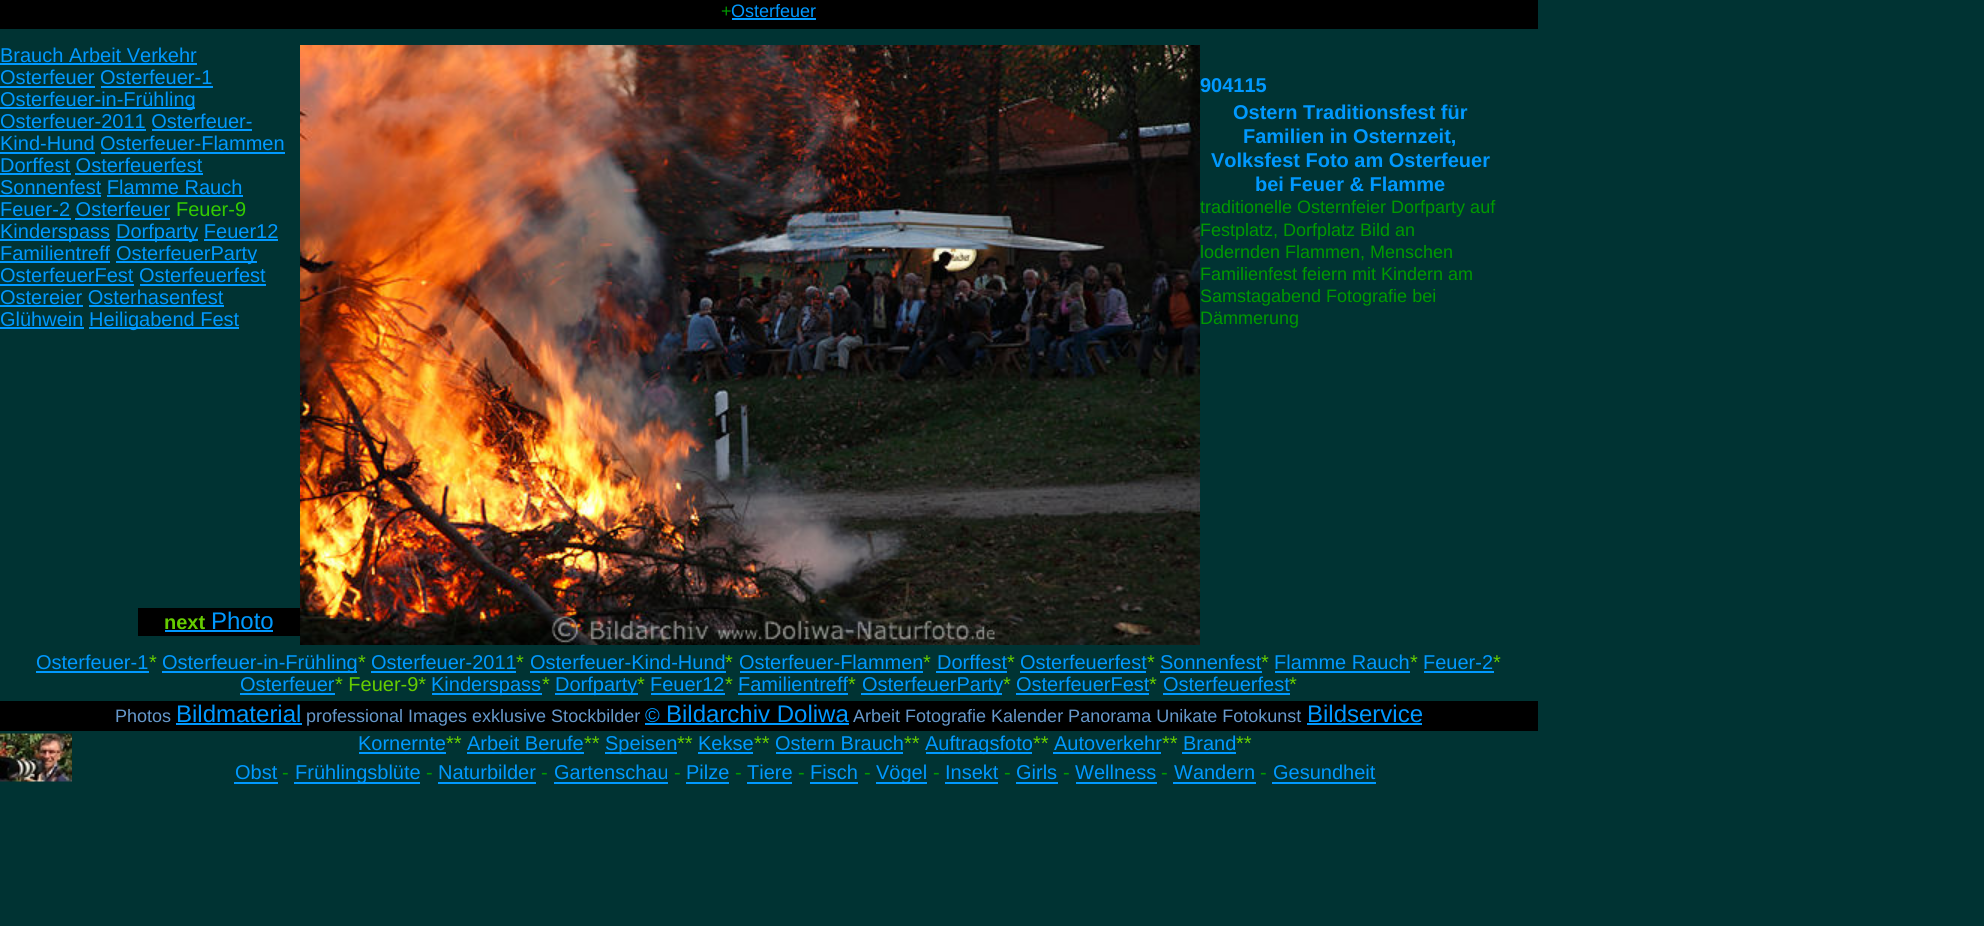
import math
import cairocffi as cairo

surface = cairo.ImageSurface(cairo.FORMAT_RGB24, 1984, 926)
ctx = cairo.Context(surface)
options = cairo.FontOptions()
options.set_hint_metrics(cairo.HINT_METRICS_OFF)
options.set_hint_style(cairo.HINT_STYLE_NONE)
ctx.set_font_options(options)
ctx.set_miter_limit(4)


def rgb(r, g, b):
    ctx.set_source_rgb(r / 255, g / 255, b / 255)


def face(family, size, italic, bold):
    ctx.select_font_face(family, cairo.FONT_SLANT_ITALIC if italic else cairo.FONT_SLANT_NORMAL, cairo.FONT_WEIGHT_BOLD if bold else cairo.FONT_WEIGHT_NORMAL)
    ctx.set_font_size(size)


def label(x, y, s):
    ctx.move_to(x, y)
    ctx.show_text(s)


def rect(x, y, w, h):
    ctx.rectangle(x, y, w, h)
    ctx.fill()


def image(path, x, y, w, h):
    ctx.save()
    ctx.set_source_surface(cairo.ImageSurface.create_from_png(path), x, y)
    ctx.rectangle(x, y, w, h)
    ctx.fill()
    ctx.restore()


rgb(0, 51, 51)
ctx.paint()
rgb(0, 0, 0)
rect(0, 0, 1538, 29)
face('Liberation Sans', 18, 0, 0)
rgb(0, 153, 0)
label(721, 17, '+')
rgb(0, 153, 255)
label(731, 17, 'Osterfeuer')
rect(732, 18, 84, 2)
face('Liberation Sans', 20, 0, 0)
label(0, 62, 'Brauch Arbeit Verkehr')
rect(0, 63, 197, 2)
label(0, 84, 'Osterfeuer Osterfeuer-1')
rect(0, 86, 95, 2)
rect(101, 86, 112, 2)
rect(0, 107, 195, 2)
label(0, 106, 'Osterfeuer-in-Frühling')
label(0, 128, 'Osterfeuer-2011 Osterfeuer-')
rect(0, 129, 146, 2)
label(0, 150, 'Kind-Hund Osterfeuer-Flammen')
rect(152, 129, 100, 2)
rect(0, 152, 95, 2)
rect(101, 152, 184, 2)
label(0, 172, 'Dorffest Osterfeuerfest')
rect(0, 173, 71, 2)
rect(75, 173, 128, 2)
label(0, 194, 'Sonnenfest Flamme Rauch')
rect(0, 195, 101, 2)
rect(107, 195, 136, 2)
label(0, 216, 'Feuer-2 Osterfeuer')
rect(0, 218, 71, 2)
rgb(51, 204, 0)
label(176, 216, 'Feuer-9')
rgb(0, 153, 255)
rect(75, 218, 95, 2)
rect(0, 239, 110, 2)
label(0, 238, 'Kinderspass')
rect(116, 239, 82, 2)
label(116, 238, 'Dorfparty Feuer12')
rect(204, 239, 74, 2)
label(0, 260, 'Familientreff')
rect(0, 261, 110, 2)
rect(116, 261, 141, 2)
label(116, 260, 'OsterfeuerParty')
label(0, 282, 'OsterfeuerFest Osterfeuerfest')
rect(0, 284, 134, 2)
rect(140, 284, 126, 2)
label(0, 304, 'Ostereier Osterhasenfest')
rect(0, 305, 83, 2)
rect(89, 305, 135, 2)
label(0, 326, 'Glühwein')
rect(0, 327, 84, 2)
rect(89, 327, 150, 2)
label(89, 326, 'Heiligabend Fest')
image('image0.png', 300, 45, 900, 600)
face('Liberation Sans', 20, 0, 1)
label(1200, 92, '904115')
label(1233, 119, 'Ostern Traditionsfest für')
label(1243, 143, 'Familien in Osternzeit,')
label(1211, 167, 'Volksfest Foto am Osterfeuer')
label(1255, 191, 'bei Feuer & Flamme')
face('Liberation Sans', 18, 0, 0)
rgb(0, 153, 0)
label(1200, 213, 'traditionelle Osternfeier Dorfparty auf')
label(1200, 236, 'Festplatz, Dorfplatz Bild an')
label(1200, 258, 'lodernden Flammen, Menschen')
label(1200, 280, 'Familienfest feiern mit Kindern am')
label(1200, 302, 'Samstagabend Fotografie bei')
label(1200, 324, 'Dämmerung')
rgb(0, 0, 0)
rect(138, 608, 162, 28)
face('Liberation Sans', 20, 0, 1)
rgb(102, 204, 0)
label(164, 629, 'next')
rgb(0, 153, 255)
rect(165, 630, 108, 2)
face('Liberation Sans', 24, 0, 0)
label(211, 629, 'Photo')
face('Liberation Sans', 20, 0, 0)
label(36, 669, 'Osterfeuer-1')
rect(36, 671, 113, 2)
rgb(102, 204, 0)
label(149, 669, '*')
rgb(0, 153, 255)
rect(162, 671, 195, 2)
label(162, 669, 'Osterfeuer-in-Frühling')
rgb(102, 204, 0)
label(358, 669, '*')
rgb(0, 153, 255)
label(371, 669, 'Osterfeuer-2011')
rect(371, 671, 145, 2)
rgb(102, 204, 0)
label(516, 669, '*')
rgb(0, 153, 255)
label(530, 669, 'Osterfeuer-Kind-Hund')
rect(530, 671, 196, 2)
rgb(102, 204, 0)
label(725, 669, '*')
rgb(0, 153, 255)
label(739, 669, 'Osterfeuer-Flammen')
rect(740, 671, 183, 2)
rgb(102, 204, 0)
label(923, 669, '*')
rgb(0, 153, 255)
label(937, 669, 'Dorffest')
rect(936, 671, 71, 2)
rgb(102, 204, 0)
label(1007, 669, '*')
rgb(0, 153, 255)
label(1020, 669, 'Osterfeuerfest')
rect(1020, 671, 126, 2)
rgb(102, 204, 0)
label(1147, 669, '*')
rgb(0, 153, 255)
label(1160, 669, 'Sonnenfest')
rect(1160, 671, 102, 2)
rgb(102, 204, 0)
label(1261, 669, '*')
rgb(0, 153, 255)
label(1274, 669, 'Flamme Rauch')
rect(1275, 671, 135, 2)
rgb(102, 204, 0)
label(1410, 669, '*')
rgb(0, 153, 255)
label(1423, 669, 'Feuer-2')
rect(1424, 671, 70, 2)
rgb(102, 204, 0)
label(1493, 669, '*')
rgb(0, 153, 255)
label(240, 691, 'Osterfeuer')
rect(240, 693, 95, 2)
rgb(102, 204, 0)
label(335, 691, '* Feuer-9*')
rgb(0, 153, 255)
rect(432, 693, 110, 2)
label(431, 691, 'Kinderspass')
rgb(102, 204, 0)
label(542, 691, '*')
rgb(0, 153, 255)
rect(555, 693, 83, 2)
label(555, 691, 'Dorfparty')
rgb(102, 204, 0)
label(637, 691, '*')
rgb(0, 153, 255)
label(650, 691, 'Feuer12')
rect(651, 693, 74, 2)
rgb(102, 204, 0)
label(725, 691, '*')
rgb(0, 153, 255)
label(738, 691, 'Familientreff')
rect(738, 693, 110, 2)
rgb(102, 204, 0)
label(848, 691, '*')
rgb(0, 153, 255)
rect(861, 693, 141, 2)
label(862, 691, 'OsterfeuerParty')
rgb(102, 204, 0)
label(1003, 691, '*')
rgb(0, 153, 255)
label(1016, 691, 'OsterfeuerFest')
rect(1016, 693, 133, 2)
rgb(102, 204, 0)
label(1149, 691, '*')
rgb(0, 153, 255)
label(1163, 691, 'Osterfeuerfest')
rect(1163, 693, 127, 2)
rgb(102, 204, 0)
label(1289, 691, '*')
rgb(0, 0, 0)
rect(0, 701, 1538, 30)
face('Liberation Sans', 18, 0, 0)
rgb(102, 153, 204)
label(115, 722, 'Photos')
face('Liberation Sans', 24, 0, 0)
rgb(0, 153, 255)
label(176, 722, 'Bildmaterial')
rect(176, 723, 126, 2)
face('Liberation Sans', 18, 0, 0)
rgb(102, 153, 204)
label(306, 722, 'professional Images exklusive Stockbilder')
face('Liberation Sans', 20, 0, 0)
rgb(0, 153, 255)
label(645, 722, '©')
rect(645, 723, 204, 2)
face('Liberation Sans', 24, 0, 0)
label(666, 722, 'Bildarchiv Doliwa')
face('Liberation Sans', 18, 0, 0)
rgb(102, 153, 204)
label(853, 722, 'Arbeit Fotografie Kalender Panorama Unikate Fotokunst')
face('Liberation Sans', 24, 0, 0)
rgb(0, 153, 255)
label(1307, 722, 'Bildservice')
rect(1307, 723, 115, 2)
image('image1.png', 0, 733, 72, 49)
face('Liberation Sans', 20, 0, 0)
label(358, 750, 'Kornernte')
rect(359, 752, 87, 2)
rgb(102, 204, 0)
label(446, 750, '**')
rgb(0, 153, 255)
label(467, 750, 'Arbeit Berufe')
rect(467, 752, 117, 2)
rgb(102, 204, 0)
label(584, 750, '**')
rgb(0, 153, 255)
rect(605, 752, 72, 2)
label(605, 750, 'Speisen')
rgb(102, 204, 0)
label(677, 750, '**')
rgb(0, 153, 255)
label(698, 750, 'Kekse')
rect(698, 752, 55, 2)
rgb(102, 204, 0)
label(754, 750, '**')
rgb(0, 153, 255)
label(775, 750, 'Ostern Brauch')
rect(776, 752, 127, 2)
rgb(102, 204, 0)
label(904, 750, '**')
rgb(0, 153, 255)
rect(926, 752, 106, 2)
label(925, 750, 'Auftragsfoto')
rgb(102, 204, 0)
label(1033, 750, '**')
rgb(0, 153, 255)
label(1054, 750, 'Autoverkehr')
rect(1053, 752, 108, 2)
rgb(102, 204, 0)
label(1162, 750, '**')
rgb(0, 153, 255)
label(1183, 750, 'Brand')
rect(1182, 752, 54, 2)
rgb(102, 204, 0)
label(1236, 750, '**')
rgb(0, 153, 255)
label(235, 779, 'Obst')
rect(234, 782, 44, 2)
rgb(0, 153, 0)
label(282, 779, '-')
rgb(0, 153, 255)
rect(294, 782, 126, 2)
label(295, 779, 'Frühlingsblüte')
rgb(0, 153, 0)
label(426, 779, '-')
rgb(0, 153, 255)
label(438, 779, 'Naturbilder')
rect(438, 782, 98, 2)
rgb(0, 153, 0)
label(541, 779, '-')
rgb(0, 153, 255)
label(554, 779, 'Gartenschau')
rect(554, 782, 114, 2)
rgb(0, 153, 0)
label(674, 779, '-')
rgb(0, 153, 255)
label(686, 779, 'Pilze')
rect(686, 782, 43, 2)
rgb(0, 153, 0)
label(735, 779, '-')
rgb(0, 153, 255)
label(747, 779, 'Tiere')
rect(747, 782, 45, 2)
rgb(0, 153, 0)
label(798, 779, '-')
rgb(0, 153, 255)
label(810, 779, 'Fisch')
rect(810, 782, 48, 2)
rgb(0, 153, 0)
label(864, 779, '-')
rgb(0, 153, 255)
rect(876, 782, 51, 2)
label(876, 779, 'Vögel')
rgb(0, 153, 0)
label(933, 779, '-')
rgb(0, 153, 255)
label(945, 779, 'Insekt')
rect(945, 782, 53, 2)
rgb(0, 153, 0)
label(1004, 779, '-')
rgb(0, 153, 255)
label(1016, 779, 'Girls')
rect(1016, 782, 42, 2)
rgb(0, 153, 0)
label(1063, 779, '-')
rgb(0, 153, 255)
label(1075, 779, 'Wellness')
rect(1076, 782, 81, 2)
rgb(0, 153, 0)
label(1161, 779, '-')
rgb(0, 153, 255)
label(1174, 779, 'Wandern')
rect(1173, 782, 83, 2)
rgb(0, 153, 0)
label(1260, 779, '-')
rgb(0, 153, 255)
label(1273, 779, 'Gesundheit')
rect(1272, 782, 104, 2)
surface.write_to_png('render.png')
